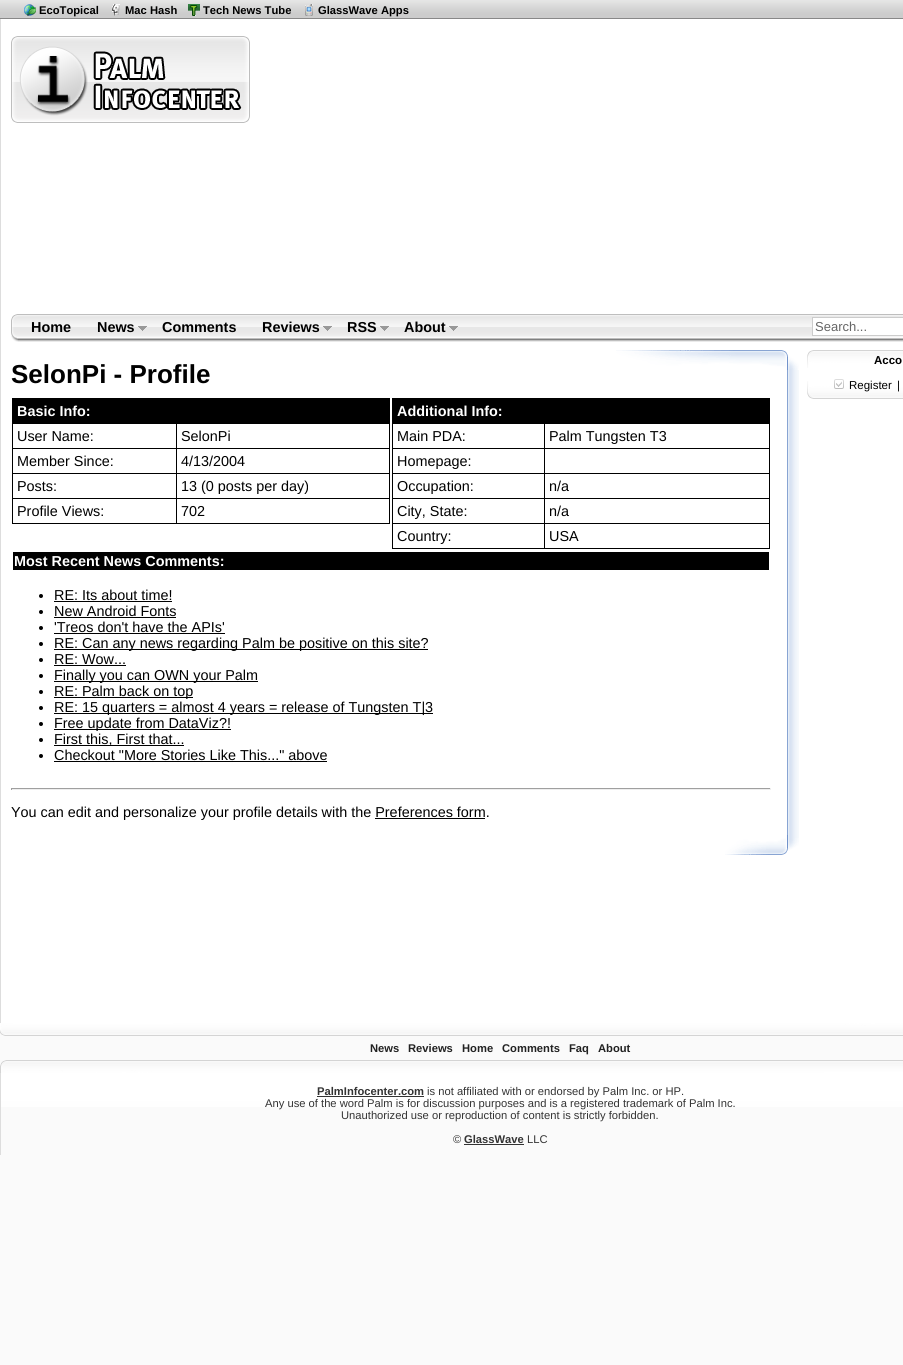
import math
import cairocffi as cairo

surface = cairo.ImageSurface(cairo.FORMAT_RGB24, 903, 1365)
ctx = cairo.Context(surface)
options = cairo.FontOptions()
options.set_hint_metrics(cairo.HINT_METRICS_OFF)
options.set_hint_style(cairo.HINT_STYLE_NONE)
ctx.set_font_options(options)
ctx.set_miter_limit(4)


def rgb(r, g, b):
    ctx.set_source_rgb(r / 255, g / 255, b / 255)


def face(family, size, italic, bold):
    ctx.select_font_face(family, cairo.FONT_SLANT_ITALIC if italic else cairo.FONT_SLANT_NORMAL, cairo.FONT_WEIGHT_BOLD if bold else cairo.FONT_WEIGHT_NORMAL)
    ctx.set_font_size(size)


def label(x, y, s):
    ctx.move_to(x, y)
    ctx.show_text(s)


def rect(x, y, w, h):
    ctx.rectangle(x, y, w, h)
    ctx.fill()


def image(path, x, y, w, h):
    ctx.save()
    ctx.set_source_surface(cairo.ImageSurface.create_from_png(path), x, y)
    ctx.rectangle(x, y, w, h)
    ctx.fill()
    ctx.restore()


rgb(250, 250, 250)
ctx.paint()
image('image0.png', 0, 0, 903, 18)
rgb(136, 136, 136)
rect(0, 18, 903, 1)
image('image1.png', 24, 4, 12, 12)
face('Liberation Sans', 11.2, 0, 1)
rgb(0, 0, 0)
label(39, 14, 'EcoTopical')
image('image2.png', 112, 4, 8, 12)
label(125, 14, 'Mac Hash')
image('image3.png', 188, 4, 12, 12)
label(203, 14, 'Tech News Tube')
image('image4.png', 305, 4, 8, 12)
label(318, 14, 'GlassWave Apps')
rgb(255, 255, 255)
rect(1, 19, 902, 1004)
rgb(221, 221, 221)
rect(0, 19, 1, 1004)
image('image5.png', 11, 36, 239, 87)
image('image6.png', 18, 314, 885, 28)
image('image7.png', 11, 314, 7, 28)
face('Liberation Sans', 14.4, 0, 1)
rgb(0, 0, 0)
label(31, 332, 'Home')
label(97, 332, 'News')
image('image8.png', 138, 326, 9, 5)
label(162, 332, 'Comments')
label(262, 332, 'Reviews')
image('image8.png', 323, 326, 9, 5)
label(347, 332, 'RSS')
image('image8.png', 380, 326, 9, 5)
label(404, 332, 'About')
image('image8.png', 449, 326, 9, 5)
rgb(255, 255, 255)
ctx.rectangle(812.5, 317.5, 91, 18)
ctx.fill_preserve()
rgb(204, 204, 204)
ctx.set_line_width(1)
ctx.stroke()
face('Liberation Sans', 13, 0, 0)
rgb(102, 102, 102)
label(815, 331, 'Search...')
image('image9.png', 787, 370, 12, 465)
image('image10.png', 616, 350, 183, 20)
face('Liberation Sans', 26, 0, 1)
rgb(0, 0, 0)
label(11, 383, 'SelonPi - Profile')
rect(12, 398, 378, 126)
face('Liberation Sans', 14.4, 0, 1)
rgb(255, 255, 255)
label(17, 416, 'Basic Info:')
rect(13, 424, 163, 24)
face('Liberation Sans', 14.4, 0, 0)
rgb(0, 0, 0)
label(17, 441, 'User Name:')
rgb(255, 255, 255)
rect(177, 424, 212, 24)
rgb(0, 0, 0)
label(181, 441, 'SelonPi')
rgb(255, 255, 255)
rect(13, 449, 163, 24)
rgb(0, 0, 0)
label(17, 466, 'Member Since:')
rgb(255, 255, 255)
rect(177, 449, 212, 24)
rgb(0, 0, 0)
label(181, 466, '4/13/2004')
rgb(255, 255, 255)
rect(13, 474, 163, 24)
rgb(0, 0, 0)
label(17, 491, 'Posts:')
rgb(255, 255, 255)
rect(177, 474, 212, 24)
rgb(0, 0, 0)
label(181, 491, '13 (0 posts per day)')
rgb(255, 255, 255)
rect(13, 499, 163, 24)
rgb(0, 0, 0)
label(17, 516, 'Profile Views:')
rgb(255, 255, 255)
rect(177, 499, 212, 24)
rgb(0, 0, 0)
label(181, 516, '702')
rect(392, 398, 378, 151)
face('Liberation Sans', 14.4, 0, 1)
rgb(255, 255, 255)
label(397, 416, 'Additional Info:')
rect(393, 424, 151, 24)
face('Liberation Sans', 14.4, 0, 0)
rgb(0, 0, 0)
label(397, 441, 'Main PDA:')
rgb(255, 255, 255)
rect(545, 424, 224, 24)
rgb(0, 0, 0)
label(549, 441, 'Palm Tungsten T3')
rgb(255, 255, 255)
rect(393, 449, 151, 24)
rgb(0, 0, 0)
label(397, 466, 'Homepage:')
rgb(255, 255, 255)
rect(545, 449, 224, 24)
rect(393, 474, 151, 24)
rgb(0, 0, 0)
label(397, 491, 'Occupation:')
rgb(255, 255, 255)
rect(545, 474, 224, 24)
rgb(0, 0, 0)
label(549, 491, 'n/a')
rgb(255, 255, 255)
rect(393, 499, 151, 24)
rgb(0, 0, 0)
label(397, 516, 'City, State:')
rgb(255, 255, 255)
rect(545, 499, 224, 24)
rgb(0, 0, 0)
label(549, 516, 'n/a')
rgb(255, 255, 255)
rect(393, 524, 151, 24)
rgb(0, 0, 0)
label(397, 541, 'Country:')
rgb(255, 255, 255)
rect(545, 524, 224, 24)
rgb(0, 0, 0)
label(549, 541, 'USA')
rect(13, 552, 756, 18)
face('Liberation Sans', 14.4, 0, 1)
rgb(255, 255, 255)
label(14, 566, 'Most Recent News Comments:')
rgb(0, 0, 0)
ctx.new_path()
ctx.arc(41, 596, 2, 0, 2 * math.pi)
ctx.fill()
face('Liberation Sans', 14.4, 0, 0)
label(54, 600, 'RE: Its about time!')
rect(54, 601, 118, 1)
ctx.new_path()
ctx.arc(41, 612, 2, 0, 2 * math.pi)
ctx.fill()
label(54, 616, 'New Android Fonts')
rect(54, 617, 122, 1)
ctx.new_path()
ctx.arc(41, 628, 2, 0, 2 * math.pi)
ctx.fill()
label(54, 632, '\'Treos don\'t have the APIs\'')
rect(54, 633, 171, 1)
ctx.new_path()
ctx.arc(41, 644, 2, 0, 2 * math.pi)
ctx.fill()
rect(54, 649, 374, 1)
label(54, 648, 'RE: Can any news regarding Palm be positive on this site?')
ctx.new_path()
ctx.arc(41, 660, 2, 0, 2 * math.pi)
ctx.fill()
label(54, 664, 'RE: Wow...')
rect(54, 665, 72, 1)
ctx.new_path()
ctx.arc(41, 676, 2, 0, 2 * math.pi)
ctx.fill()
rect(54, 681, 204, 1)
label(54, 680, 'Finally you can OWN your Palm')
ctx.new_path()
ctx.arc(41, 692, 2, 0, 2 * math.pi)
ctx.fill()
rect(54, 697, 139, 1)
label(54, 696, 'RE: Palm back on top')
ctx.new_path()
ctx.arc(41, 708, 2, 0, 2 * math.pi)
ctx.fill()
rect(54, 713, 379, 1)
label(54, 712, 'RE: 15 quarters = almost 4 years = release of Tungsten T|3')
ctx.new_path()
ctx.arc(41, 724, 2, 0, 2 * math.pi)
ctx.fill()
rect(54, 729, 177, 1)
label(54, 728, 'Free update from DataViz?!')
ctx.new_path()
ctx.arc(41, 740, 2, 0, 2 * math.pi)
ctx.fill()
rect(54, 745, 130, 1)
label(54, 744, 'First this, First that...')
ctx.new_path()
ctx.arc(41, 756, 2, 0, 2 * math.pi)
ctx.fill()
label(54, 760, 'Checkout "More Stories Like This..." above')
rect(54, 761, 273, 1)
rgb(159, 159, 159)
rect(11, 788, 760, 1)
rgb(238, 238, 238)
rect(770, 788, 1, 2)
rect(11, 789, 760, 1)
rgb(159, 159, 159)
rect(11, 788, 1, 2)
rgb(0, 0, 0)
label(11, 817, 'You can edit and personalize your profile details with the Preferences form.')
rect(375, 818, 110, 1)
image('image11.png', 725, 835, 74, 20)
image('image12.png', 807, 381, 96, 18)
image('image13.png', 807, 350, 96, 18)
face('Liberation Sans', 11.5, 0, 1)
label(874, 364, 'Acco')
image('image14.png', 834, 379, 10, 10)
face('Liberation Sans', 11.5, 0, 0)
label(849, 389, 'Register')
label(897, 389, '|')
image('image15.png', 0, 1023, 903, 13)
face('Liberation Sans', 11.2, 0, 1)
rgb(34, 34, 34)
label(370, 1052, 'News')
label(408, 1052, 'Reviews')
label(462, 1052, 'Home')
label(502, 1052, 'Comments')
label(569, 1052, 'Faq')
label(598, 1052, 'About')
image('image16.png', 0, 1060, 903, 13)
image('image17.png', 1, 1073, 902, 34)
rgb(221, 221, 221)
rect(0, 1073, 1, 82)
rgb(51, 51, 51)
label(317, 1095, 'PalmInfocenter.com')
rect(317, 1096, 107, 1)
face('Liberation Sans', 11.2, 0, 0)
label(427, 1095, 'is not affiliated with or endorsed by Palm Inc. or HP.')
label(265, 1107, 'Any use of the word Palm is for discussion purposes and is a registered trademark of Palm Inc.')
label(341, 1119, 'Unauthorized use or reproduction of content is strictly forbidden.')
label(453, 1143, '©')
face('Liberation Sans', 11.2, 0, 1)
label(464, 1143, 'GlassWave')
rect(464, 1144, 60, 1)
face('Liberation Sans', 11.2, 0, 0)
label(527, 1143, 'LLC')
surface.write_to_png('render.png')
